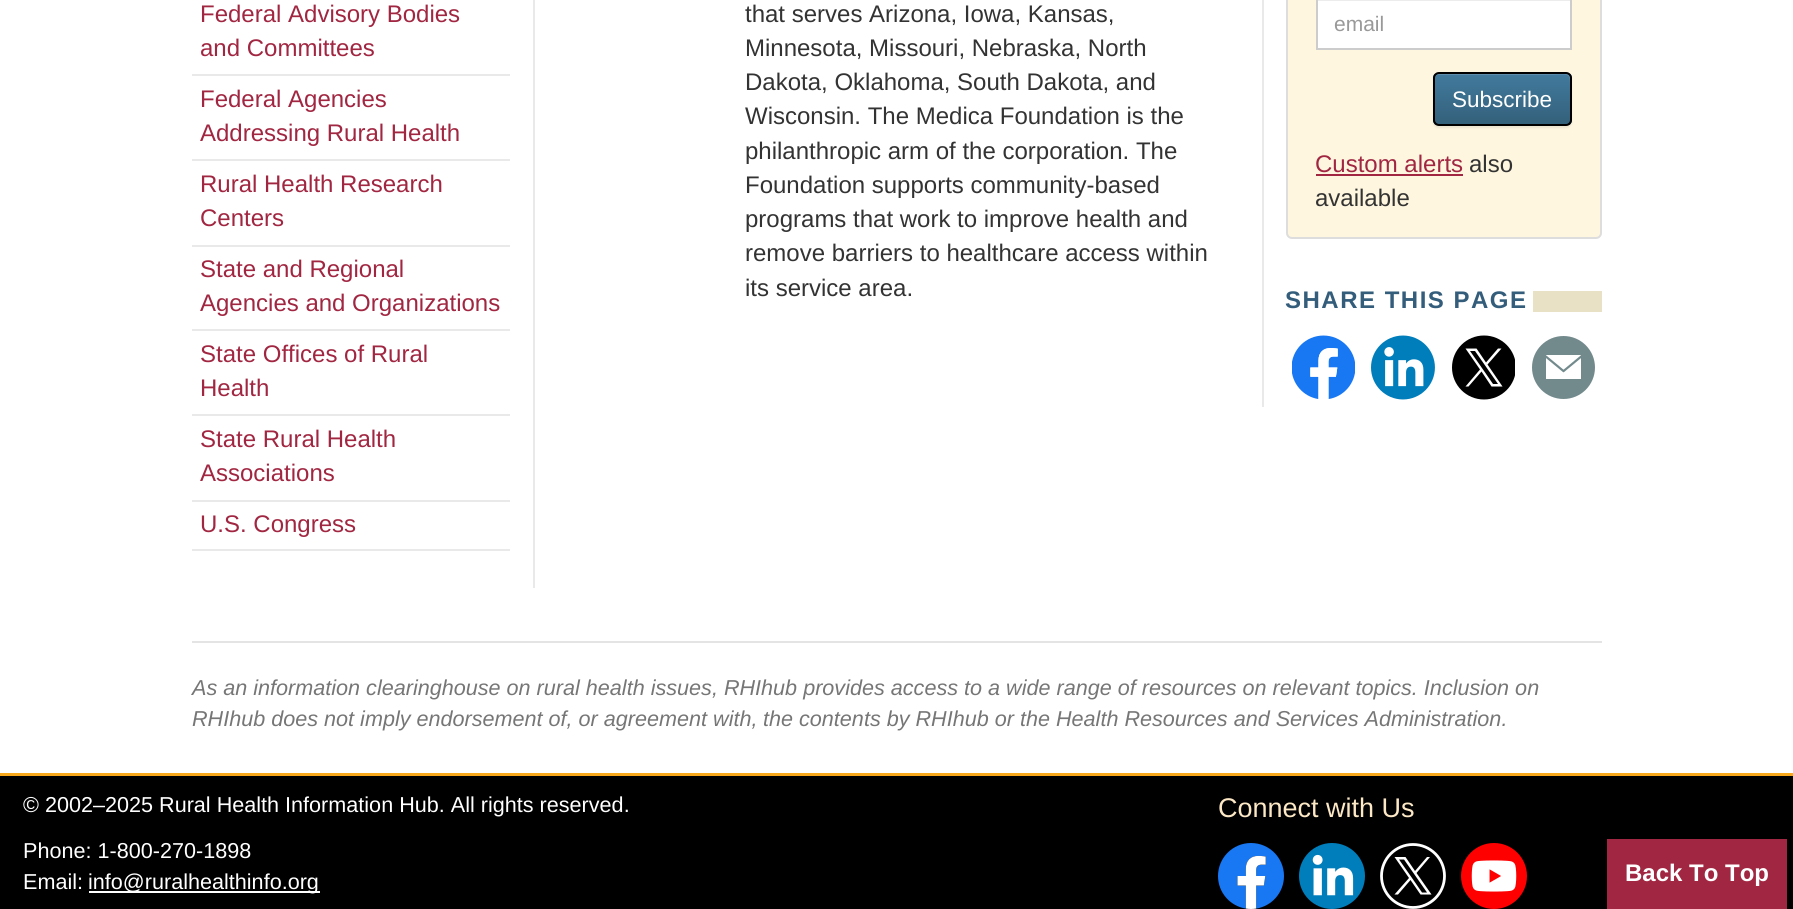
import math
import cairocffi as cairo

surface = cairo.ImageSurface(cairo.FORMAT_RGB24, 1793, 909)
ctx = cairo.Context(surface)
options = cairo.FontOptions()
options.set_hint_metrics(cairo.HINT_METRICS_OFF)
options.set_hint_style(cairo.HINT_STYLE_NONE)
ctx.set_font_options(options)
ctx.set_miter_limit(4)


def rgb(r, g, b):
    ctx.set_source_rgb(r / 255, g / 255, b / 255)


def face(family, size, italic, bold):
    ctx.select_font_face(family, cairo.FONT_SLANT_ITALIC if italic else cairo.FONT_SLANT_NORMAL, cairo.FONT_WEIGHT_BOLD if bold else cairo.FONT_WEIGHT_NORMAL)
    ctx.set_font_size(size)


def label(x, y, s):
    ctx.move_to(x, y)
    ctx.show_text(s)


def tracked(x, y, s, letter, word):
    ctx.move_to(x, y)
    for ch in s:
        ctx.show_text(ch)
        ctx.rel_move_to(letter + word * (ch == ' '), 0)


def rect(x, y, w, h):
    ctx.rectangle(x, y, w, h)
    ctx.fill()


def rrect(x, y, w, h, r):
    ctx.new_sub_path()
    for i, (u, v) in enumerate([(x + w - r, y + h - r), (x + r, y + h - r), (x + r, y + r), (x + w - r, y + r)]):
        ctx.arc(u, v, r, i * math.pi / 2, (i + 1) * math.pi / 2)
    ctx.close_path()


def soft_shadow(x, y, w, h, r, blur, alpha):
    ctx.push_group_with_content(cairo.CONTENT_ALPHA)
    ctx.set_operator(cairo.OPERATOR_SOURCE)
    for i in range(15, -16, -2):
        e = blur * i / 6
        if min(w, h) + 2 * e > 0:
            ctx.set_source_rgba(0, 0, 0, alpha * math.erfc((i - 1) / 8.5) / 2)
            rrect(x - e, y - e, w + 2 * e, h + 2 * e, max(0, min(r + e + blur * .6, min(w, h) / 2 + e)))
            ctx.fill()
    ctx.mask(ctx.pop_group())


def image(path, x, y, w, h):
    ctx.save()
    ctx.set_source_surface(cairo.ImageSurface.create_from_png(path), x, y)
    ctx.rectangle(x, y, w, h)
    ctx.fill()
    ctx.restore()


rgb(255, 255, 255)
ctx.paint()
rgb(233, 233, 233)
rect(533, 0, 2, 588)
rect(192, 74, 318, 2)
face('Liberation Sans', 24, 0, 0)
rgb(161, 38, 65)
label(200, 22, 'Federal Advisory Bodies')
label(200, 56, 'and Committees')
rgb(233, 233, 233)
rect(192, 159, 318, 2)
rgb(161, 38, 65)
label(200, 107, 'Federal Agencies')
label(200, 141, 'Addressing Rural Health')
rgb(233, 233, 233)
rect(192, 245, 318, 2)
rgb(161, 38, 65)
label(200, 192, 'Rural Health Research')
label(200, 226, 'Centers')
rgb(233, 233, 233)
rect(192, 329, 318, 2)
rgb(161, 38, 65)
label(200, 277, 'State and Regional')
label(200, 311, 'Agencies and Organizations')
rgb(233, 233, 233)
rect(192, 414, 318, 2)
rgb(161, 38, 65)
label(200, 362, 'State Offices of Rural')
label(200, 396, 'Health')
rgb(233, 233, 233)
rect(192, 500, 318, 2)
rgb(161, 38, 65)
label(200, 447, 'State Rural Health')
label(200, 481, 'Associations')
rgb(233, 233, 233)
rect(192, 549, 318, 2)
rgb(161, 38, 65)
label(200, 532, 'U.S. Congress')
rgb(51, 51, 51)
label(745, 22, 'that serves Arizona, Iowa, Kansas,')
label(745, 56, 'Minnesota, Missouri, Nebraska, North')
label(745, 90, 'Dakota, Oklahoma, South Dakota, and')
label(745, 124, 'Wisconsin. The Medica Foundation is the')
label(745, 159, 'philanthropic arm of the corporation. The')
label(745, 193, 'Foundation supports community-based')
label(745, 227, 'programs that work to improve health and')
label(745, 261, 'remove barriers to healthcare access within')
label(745, 296, 'its service area.')
rgb(233, 233, 233)
rect(1262, 0, 2, 407)
rgb(254, 246, 223)
rrect(1287, -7, 314, 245, 5)
ctx.fill_preserve()
rgb(221, 221, 221)
ctx.stroke()
rgb(255, 255, 255)
rect(1318, 1, 252, 47)
rgb(236, 236, 236)
rect(1317, 0, 254, 1)
ctx.rectangle(1317, -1, 254, 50)
rgb(204, 204, 204)
ctx.stroke()
face('Liberation Sans', 21, 0, 0)
rgb(153, 153, 153)
label(1334, 31, 'email')
rgb(0, 0, 0)
soft_shadow(1433, 74, 139, 54, 6, 1, 0.07)
ctx.save()
rrect(1433, 72, 139, 54, 6)
ctx.clip()
gradient = cairo.LinearGradient(1502, 73, 1502, 125)
gradient.add_color_stop_rgba(0, 0.259, 0.482, 0.62, 1)
gradient.add_color_stop_rgba(1, 0.2, 0.376, 0.478, 1)
ctx.set_source(gradient)
rect(1433, 74, 139, 51)
ctx.restore()
ctx.set_source_rgba(1, 1, 1, 0.15)
ctx.new_path()
ctx.move_to(1438, 75)
ctx.line_to(1545, 75)
ctx.curve_to(1572, 75, 1570, 70, 1570, 94)
ctx.line_to(1570, 123)
ctx.curve_to(1571, 122, 1571, 121, 1571, 120)
ctx.line_to(1571, 79)
ctx.curve_to(1571, 76, 1569, 74, 1566, 74)
ctx.line_to(1439, 74)
ctx.curve_to(1436, 74, 1434, 76, 1434, 79)
ctx.line_to(1434, 80)
ctx.curve_to(1434, 77, 1436, 75, 1438, 75)
ctx.close_path()
ctx.fill()
rrect(1434, 73, 137, 52, 5)
rgb(0, 0, 0)
ctx.stroke()
face('Liberation Sans', 22.5, 0, 0)
rgb(255, 255, 255)
label(1452, 107, 'Subscribe')
face('Liberation Sans', 24, 0, 0)
rgb(161, 38, 65)
label(1315, 172, 'Custom alerts')
rect(1316, 174, 147, 2)
rgb(51, 51, 51)
label(1469, 172, 'also')
label(1315, 206, 'available')
face('Liberation Sans', 24, 0, 1)
rgb(51, 93, 122)
tracked(1285, 308, 'SHARE THIS PAGE', 1.5, 0)
rgb(233, 225, 197)
rect(1533, 291, 69, 21)
image('image0.png', 1292, 335, 63, 64)
image('image1.png', 1371, 335, 64, 65)
ctx.save()
ctx.rectangle(1452, 335, 63, 66)
ctx.clip()
rgb(0, 0, 0)
ctx.arc(1484, 367.5, 32, 0, 2 * math.pi)
ctx.fill()
ctx.restore()
rgb(255, 255, 255)
ctx.new_path()
ctx.move_to(1487.5, 364.5)
ctx.line_to(1501.5, 348.5)
ctx.line_to(1498, 348.5)
ctx.line_to(1486, 362.5)
ctx.line_to(1476.5, 348.5)
ctx.line_to(1465.5, 348.5)
ctx.line_to(1480, 369.5)
ctx.line_to(1465.5, 386.5)
ctx.line_to(1468.5, 386.5)
ctx.line_to(1481.5, 371.5)
ctx.line_to(1491.5, 386.5)
ctx.line_to(1502.5, 386.5)
ctx.close_path()
ctx.move_to(1483, 369.5)
ctx.line_to(1470, 351)
ctx.line_to(1475, 351)
ctx.line_to(1498, 384)
ctx.line_to(1493, 384)
ctx.close_path()
ctx.fill()
rgb(115, 138, 141)
ctx.arc(1563.5, 367.5, 31.5, 0, 2 * math.pi)
ctx.fill()
rgb(255, 255, 255)
rect(1546, 355, 35, 24)
ctx.new_path()
ctx.move_to(1544, 355)
ctx.line_to(1564, 371.5)
ctx.move_to(1583, 355)
ctx.line_to(1563, 371.5)
rgb(115, 138, 141)
ctx.set_line_width(2.2)
ctx.stroke()
rgb(228, 228, 228)
rect(192, 641, 1410, 2)
face('Liberation Sans', 21.6, 1, 0)
rgb(118, 118, 118)
label(192, 695, 'As an information clearinghouse on rural health issues, RHIhub provides access to a wide range of resources on relevant topics. Inclusion on')
label(192, 726, 'RHIhub does not imply endorsement of, or agreement with,')
label(763, 726, 'the contents by RHIhub or the Health Resources and Services Administration.')
rgb(0, 0, 0)
rect(0, 776, 1793, 133)
rgb(247, 168, 27)
rect(0, 773, 1793, 3)
face('Liberation Sans', 21.6, 0, 0)
rgb(255, 255, 255)
label(23, 812, '© 2002–2025 Rural Health Information Hub. All rights reserved.')
label(23, 858, 'Phone: 1-800-270-1898')
label(23, 889, 'Email:')
rect(89, 891, 231, 2)
label(88, 889, 'info@ruralhealthinfo.org')
face('Liberation Sans', 27, 0, 0)
rgb(253, 232, 198)
label(1218, 817, 'Connect with Us')
image('image2.png', 1218, 843, 66, 66)
image('image3.png', 1299, 843, 66, 66)
ctx.arc(1413, 876, 31.5, 0, 2 * math.pi)
rgb(255, 255, 255)
ctx.set_line_width(2.8)
ctx.stroke()
ctx.new_path()
ctx.move_to(1416.5, 873)
ctx.line_to(1430, 857)
ctx.line_to(1427, 857)
ctx.line_to(1415, 871)
ctx.line_to(1405.5, 857)
ctx.line_to(1394.5, 857)
ctx.line_to(1409, 878)
ctx.line_to(1394.5, 894.5)
ctx.line_to(1398, 894.5)
ctx.line_to(1410.5, 880)
ctx.line_to(1420.5, 894.5)
ctx.line_to(1431.5, 894.5)
ctx.close_path()
ctx.move_to(1412, 878)
ctx.line_to(1399, 859.5)
ctx.line_to(1404, 859.5)
ctx.line_to(1427, 892.5)
ctx.line_to(1422, 892.5)
ctx.close_path()
ctx.fill()
image('image4.png', 1461, 843, 66, 66)
rgb(161, 38, 65)
rect(1607, 839, 180, 70)
face('Liberation Sans', 24, 0, 1)
rgb(255, 255, 255)
label(1625, 881, 'Back To Top')
surface.write_to_png('render.png')
